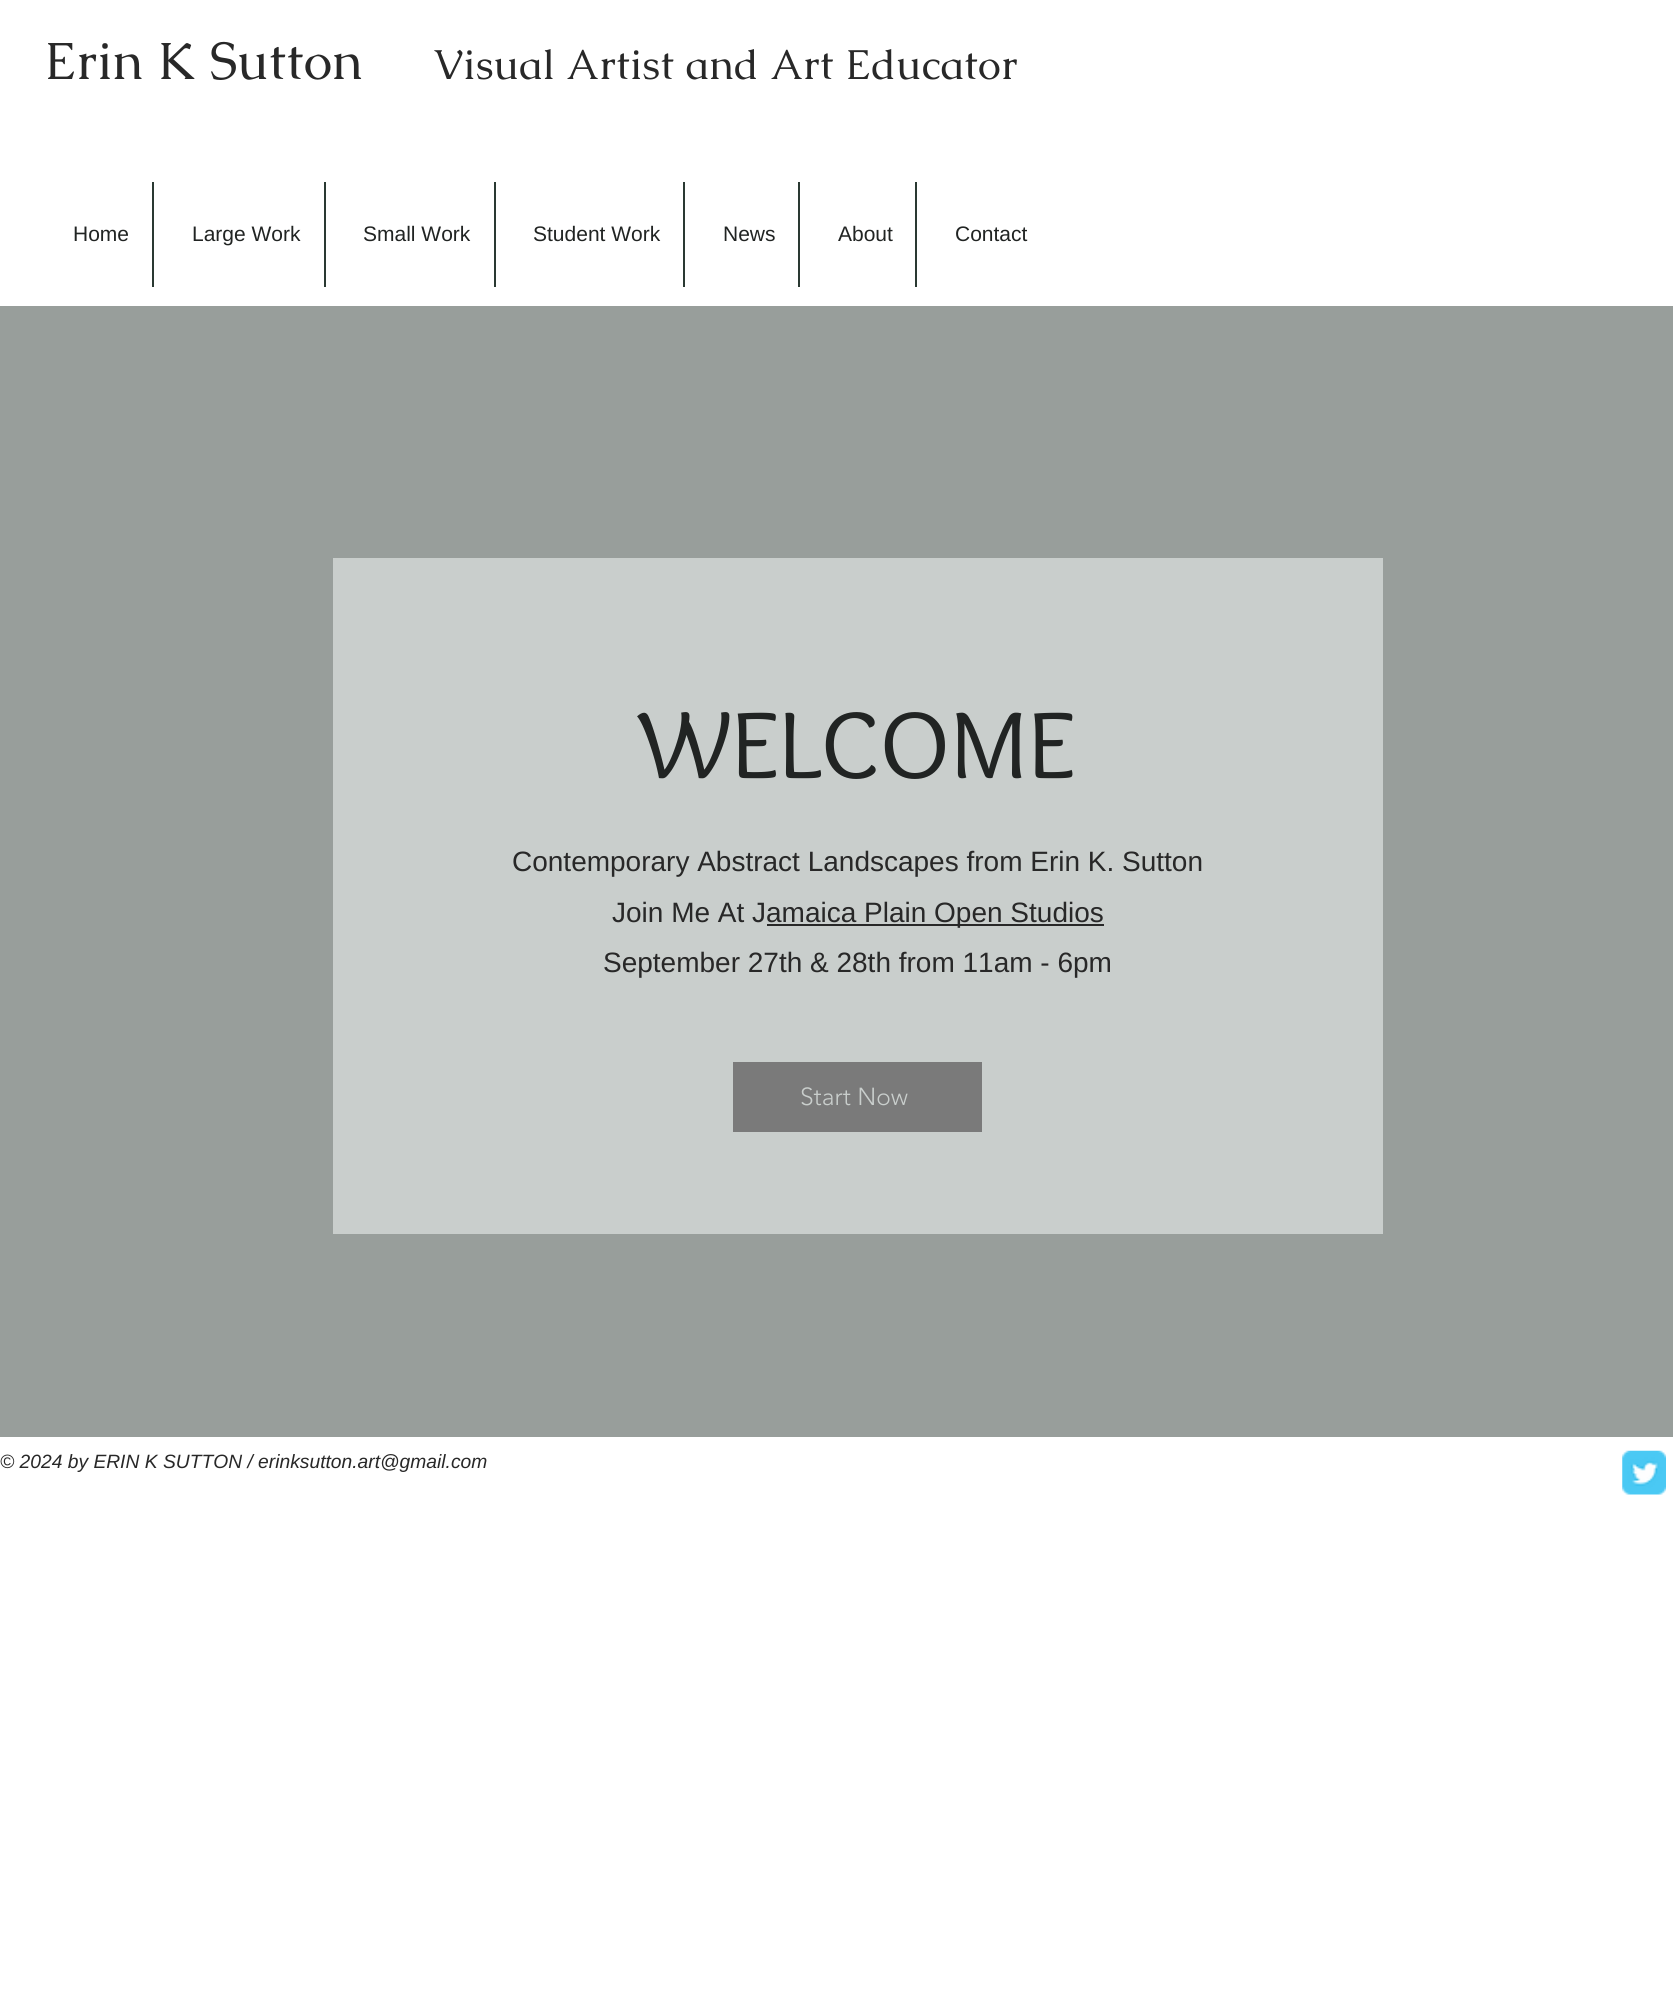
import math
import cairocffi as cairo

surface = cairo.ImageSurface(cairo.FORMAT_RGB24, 1673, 2012)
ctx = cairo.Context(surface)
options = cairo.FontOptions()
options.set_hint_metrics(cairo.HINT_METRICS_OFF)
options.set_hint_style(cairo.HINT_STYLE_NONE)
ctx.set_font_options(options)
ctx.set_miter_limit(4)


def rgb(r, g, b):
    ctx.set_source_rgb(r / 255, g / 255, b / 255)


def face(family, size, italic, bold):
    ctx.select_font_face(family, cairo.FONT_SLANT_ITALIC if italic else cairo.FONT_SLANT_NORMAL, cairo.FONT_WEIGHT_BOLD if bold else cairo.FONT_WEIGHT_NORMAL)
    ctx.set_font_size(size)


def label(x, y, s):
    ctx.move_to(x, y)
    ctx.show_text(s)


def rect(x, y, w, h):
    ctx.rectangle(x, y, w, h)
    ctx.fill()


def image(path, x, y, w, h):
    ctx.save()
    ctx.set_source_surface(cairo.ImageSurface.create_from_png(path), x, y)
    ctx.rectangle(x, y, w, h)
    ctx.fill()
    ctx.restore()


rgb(255, 255, 255)
ctx.paint()
face('Caudex', 52.5, 0, 0)
rgb(40, 40, 40)
label(44, 79, 'Erin K Sutton')
face('Caudex', 42, 0, 0)
label(433, 79, 'Visual Artist and Art Educator')
face('Liberation Sans', 21, 0, 0)
rgb(33, 36, 35)
label(73, 241, 'Home')
rgb(42, 57, 50)
rect(152, 182, 2, 105)
rgb(33, 36, 35)
label(192, 241, 'Large Work')
rgb(42, 57, 50)
rect(324, 182, 2, 105)
rgb(33, 36, 35)
label(363, 241, 'Small Work')
rgb(42, 57, 50)
rect(494, 182, 2, 105)
rgb(33, 36, 35)
label(533, 241, 'Student Work')
rgb(42, 57, 50)
rect(683, 182, 2, 105)
rgb(33, 36, 35)
label(723, 241, 'News')
rgb(42, 57, 50)
rect(798, 182, 2, 105)
rgb(33, 36, 35)
label(838, 241, 'About')
rgb(42, 57, 50)
rect(915, 182, 2, 105)
rgb(33, 36, 35)
label(955, 241, 'Contact')
rgb(152, 158, 155)
rect(0, 306, 1673, 1131)
rgb(201, 206, 204)
rect(333, 558, 1050, 676)
face('Overlock', 98, 0, 0)
rgb(33, 36, 35)
label(639, 778, 'WELCOME')
face('Liberation Sans', 28, 0, 0)
rgb(40, 40, 40)
label(512, 871, 'Contemporary Abstract Landscapes from Erin K. Sutton')
label(612, 922, 'Join Me At J')
rect(767, 924, 337, 2)
label(766, 922, 'amaica Plain Open Studios')
label(603, 972, 'September 27th & 28th from 11am - 6pm')
rgb(122, 122, 122)
rect(733, 1062, 249, 70)
face('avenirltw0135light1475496 Light', 24.5, 0, 0)
rgb(201, 206, 204)
label(800, 1105, 'Start Now')
face('Liberation Sans', 19.25, 1, 0)
rgb(40, 40, 40)
label(0, 1468, '© 2024 by ERIN K SUTTON / erinksutton.art@gmail.com')
image('image0.png', 1622, 1450, 44, 45)
surface.write_to_png('render.png')
